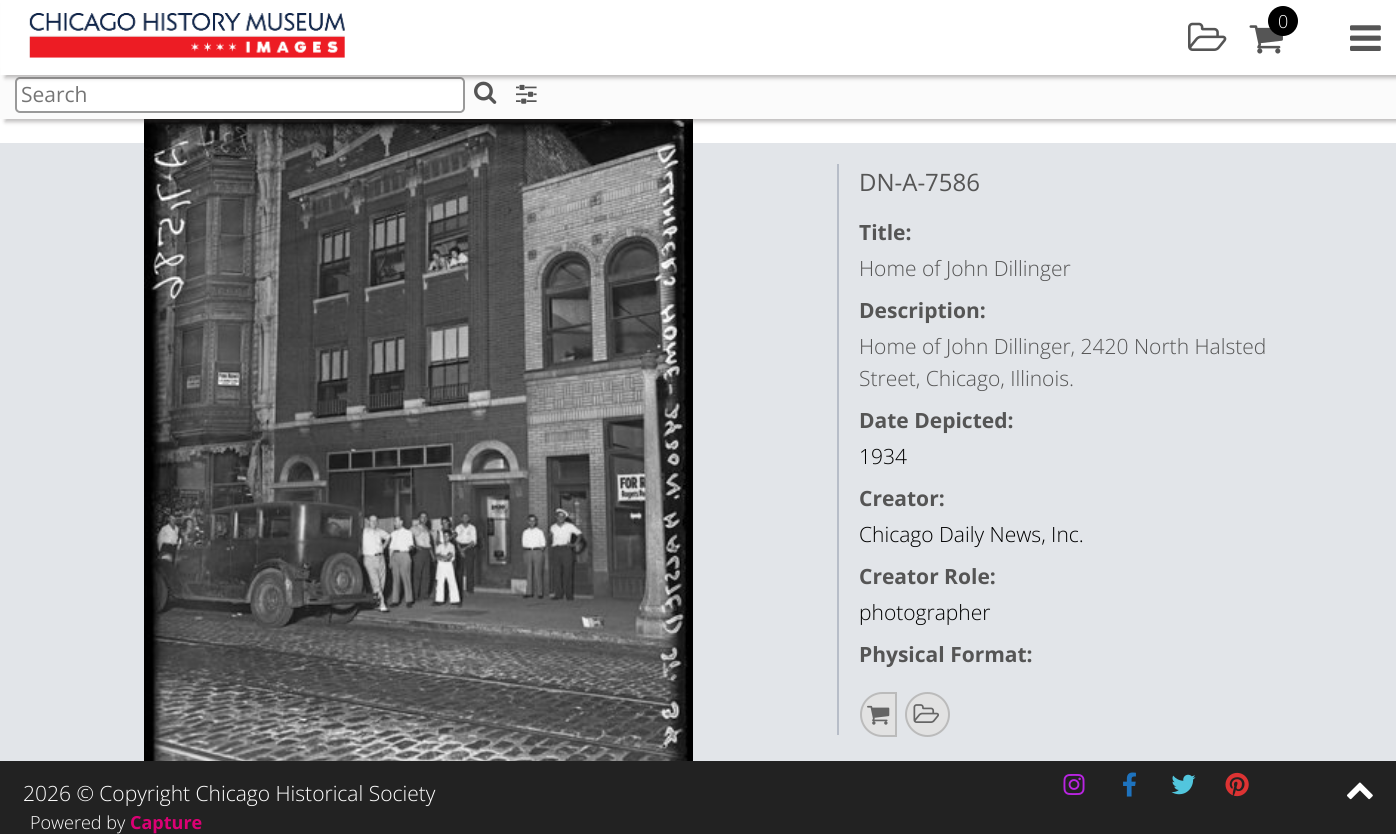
import math
import cairocffi as cairo

surface = cairo.ImageSurface(cairo.FORMAT_RGB24, 1396, 834)
ctx = cairo.Context(surface)
options = cairo.FontOptions()
options.set_hint_metrics(cairo.HINT_METRICS_OFF)
options.set_hint_style(cairo.HINT_STYLE_NONE)
ctx.set_font_options(options)
ctx.set_miter_limit(4)


def rgb(r, g, b):
    ctx.set_source_rgb(r / 255, g / 255, b / 255)


def face(family, size, italic, bold):
    ctx.select_font_face(family, cairo.FONT_SLANT_ITALIC if italic else cairo.FONT_SLANT_NORMAL, cairo.FONT_WEIGHT_BOLD if bold else cairo.FONT_WEIGHT_NORMAL)
    ctx.set_font_size(size)


def label(x, y, s):
    ctx.move_to(x, y)
    ctx.show_text(s)


def rect(x, y, w, h):
    ctx.rectangle(x, y, w, h)
    ctx.fill()


def rrect(x, y, w, h, r):
    ctx.new_sub_path()
    for i, (u, v) in enumerate([(x + w - r, y + h - r), (x + r, y + h - r), (x + r, y + r), (x + w - r, y + r)]):
        ctx.arc(u, v, r, i * math.pi / 2, (i + 1) * math.pi / 2)
    ctx.close_path()


def soft_shadow(x, y, w, h, r, blur, alpha):
    ctx.push_group_with_content(cairo.CONTENT_ALPHA)
    ctx.set_operator(cairo.OPERATOR_SOURCE)
    for i in range(15, -16, -2):
        e = blur * i / 6
        if min(w, h) + 2 * e > 0:
            ctx.set_source_rgba(0, 0, 0, alpha * math.erfc((i - 1) / 8.5) / 2)
            rrect(x - e, y - e, w + 2 * e, h + 2 * e, max(0, min(r + e + blur * .6, min(w, h) / 2 + e)))
            ctx.fill()
    ctx.mask(ctx.pop_group())


def image(path, x, y, w, h):
    ctx.save()
    ctx.set_source_surface(cairo.ImageSurface.create_from_png(path), x, y)
    ctx.rectangle(x, y, w, h)
    ctx.fill()
    ctx.restore()


rgb(255, 255, 255)
ctx.paint()
rgb(226, 229, 233)
rect(0, 143, 1396, 618)
image('image6.png', 144, 119, 549, 642)
rgb(74, 69, 69)
soft_shadow(5, 68, 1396, 54, 0, 2, 0.35)
rgb(251, 251, 251)
rect(0, 75, 1396, 44)
rgb(255, 255, 255)
rrect(16, 78, 448, 34, 4)
ctx.fill_preserve()
rgb(153, 153, 153)
ctx.stroke()
image('image4.png', 474, 81, 23, 23)
image('image5.png', 516, 84, 21, 20)
rgb(74, 69, 69)
soft_shadow(5, 3, 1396, 75, 0, 2, 0.35)
rgb(255, 255, 255)
rect(1, 0, 1395, 75)
image('image0.png', 29, 13, 316, 45)
image('image1.png', 1188, 22, 39, 29)
image('image2.png', 1249, 25, 34, 29)
rgb(0, 0, 0)
ctx.arc(1283, 21, 15, 0, 2 * math.pi)
ctx.fill()
face('Open Sans Light', 18, 0, 0)
rgb(255, 255, 255)
label(1278, 28, '0')
image('image3.png', 1350, 25, 31, 26)
face('Open Sans', 21, 0, 0)
rgb(117, 117, 117)
label(21, 102, 'Search')
rgb(183, 189, 200)
rect(837, 164, 2, 571)
face('Open Sans', 24, 0, 0)
rgb(85, 85, 85)
label(859, 191, 'DN-A-7586')
face('Open Sans', 21, 0, 1)
label(859, 240, 'Title:')
face('Open Sans Light', 21, 0, 0)
label(859, 276, 'Home of John Dillinger')
face('Open Sans', 21, 0, 1)
label(859, 318, 'Description:')
face('Open Sans Light', 21, 0, 0)
label(859, 354, 'Home of John Dillinger, 2420 North Halsted')
label(859, 386, 'Street, Chicago, Illinois.')
face('Open Sans', 21, 0, 1)
label(859, 428, 'Date Depicted:')
face('Open Sans Light', 21, 0, 0)
rgb(0, 0, 0)
label(859, 464, '1934')
face('Open Sans', 21, 0, 1)
rgb(85, 85, 85)
label(859, 506, 'Creator:')
face('Open Sans Light', 21, 0, 0)
rgb(0, 0, 0)
label(859, 542, 'Chicago Daily News, Inc.')
face('Open Sans', 21, 0, 1)
rgb(85, 85, 85)
label(859, 584, 'Creator Role:')
face('Open Sans Light', 21, 0, 0)
rgb(0, 0, 0)
label(859, 620, 'photographer')
face('Open Sans', 21, 0, 1)
rgb(85, 85, 85)
label(859, 662, 'Physical Format:')
rgb(226, 226, 226)
ctx.new_path()
ctx.move_to(882.5, 693)
ctx.line_to(896, 693)
ctx.line_to(896, 736)
ctx.line_to(882.5, 736)
ctx.curve_to(870.5, 736, 861, 726.5, 861, 714.5)
ctx.curve_to(861, 702.5, 870.5, 693, 882.5, 693)
ctx.close_path()
ctx.fill_preserve()
rgb(187, 187, 187)
ctx.stroke()
image('image7.png', 867, 705, 23, 20)
rgb(226, 226, 226)
ctx.arc(927.5, 714.5, 21.5, 0, 2 * math.pi)
ctx.fill_preserve()
rgb(187, 187, 187)
ctx.stroke()
image('image8.png', 913, 704, 26, 19)
rgb(34, 34, 34)
rect(0, 761, 1396, 73)
face('Open Sans Light', 21, 0, 0)
rgb(255, 255, 255)
label(23, 801, '2026 © Copyright Chicago Historical Society')
face('Open Sans Light', 18, 0, 0)
label(30, 829, 'Powered by')
face('Open Sans', 18, 0, 1)
rgb(219, 0, 116)
label(130, 829, 'Capture')
image('image9.png', 1063, 774, 22, 21)
image('image10.png', 1123, 772, 13, 25)
image('image11.png', 1171, 774, 25, 21)
image('image12.png', 1225, 772, 24, 25)
image('image13.png', 1347, 782, 26, 18)
surface.write_to_png('render.png')
